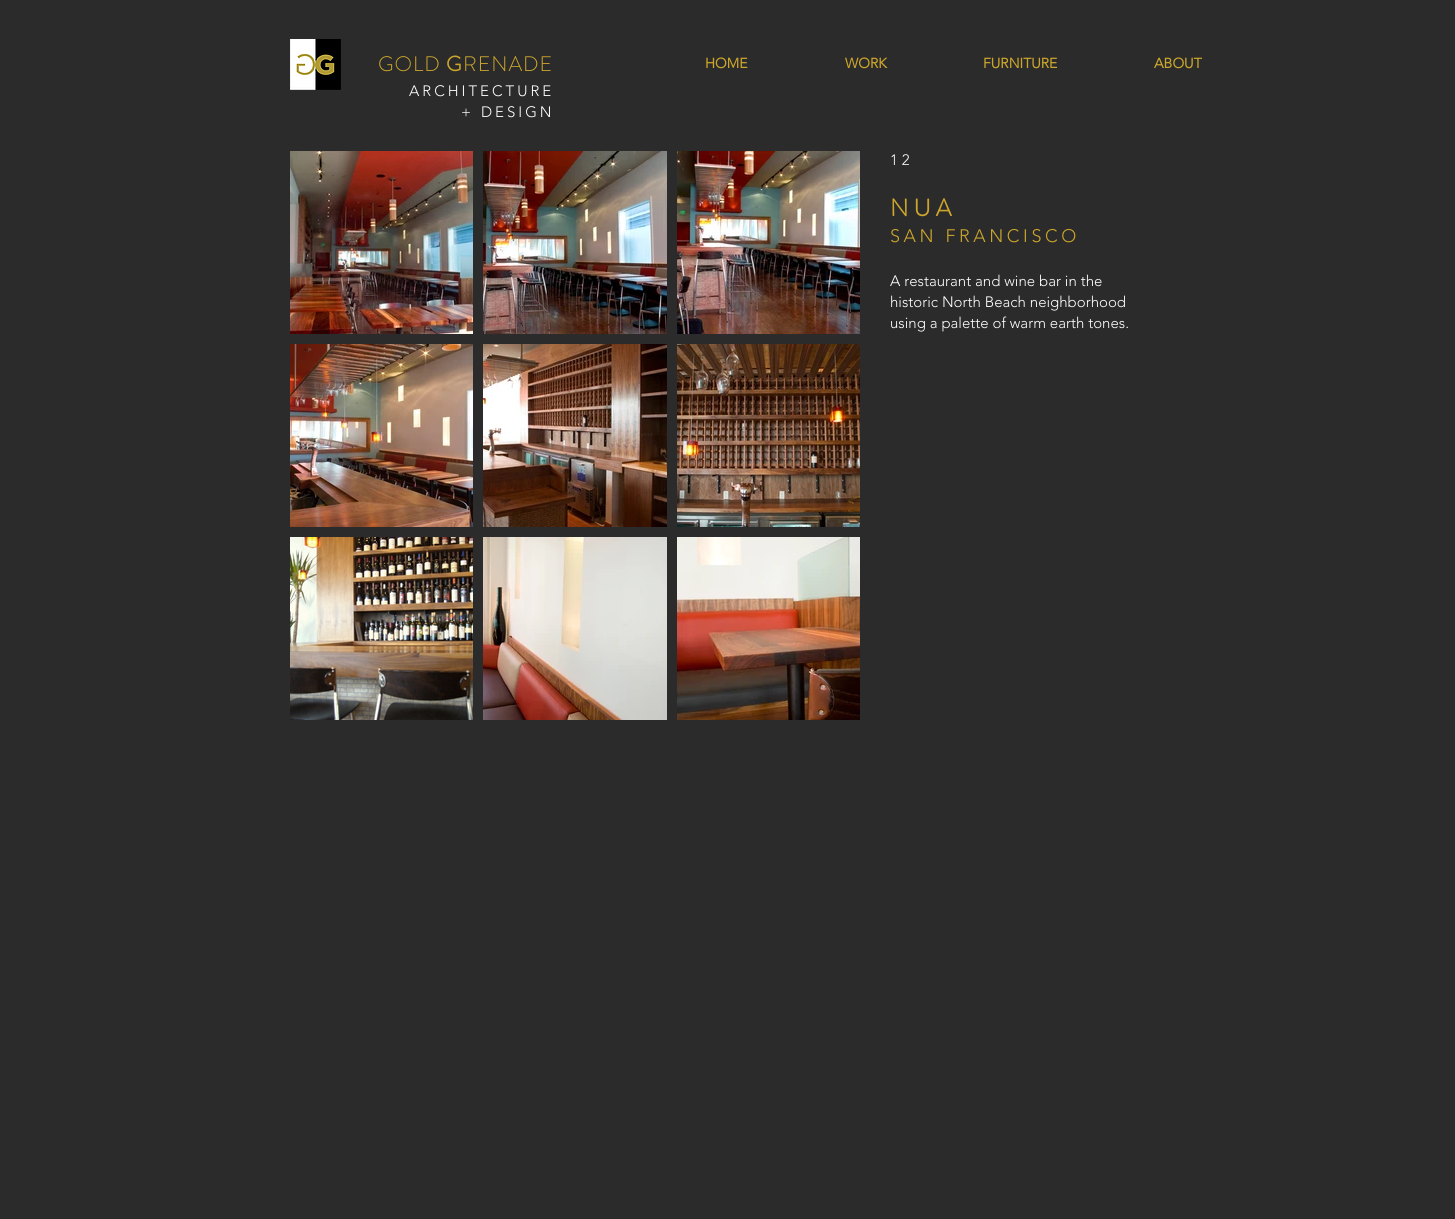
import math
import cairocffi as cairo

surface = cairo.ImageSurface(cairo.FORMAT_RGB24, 1455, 1219)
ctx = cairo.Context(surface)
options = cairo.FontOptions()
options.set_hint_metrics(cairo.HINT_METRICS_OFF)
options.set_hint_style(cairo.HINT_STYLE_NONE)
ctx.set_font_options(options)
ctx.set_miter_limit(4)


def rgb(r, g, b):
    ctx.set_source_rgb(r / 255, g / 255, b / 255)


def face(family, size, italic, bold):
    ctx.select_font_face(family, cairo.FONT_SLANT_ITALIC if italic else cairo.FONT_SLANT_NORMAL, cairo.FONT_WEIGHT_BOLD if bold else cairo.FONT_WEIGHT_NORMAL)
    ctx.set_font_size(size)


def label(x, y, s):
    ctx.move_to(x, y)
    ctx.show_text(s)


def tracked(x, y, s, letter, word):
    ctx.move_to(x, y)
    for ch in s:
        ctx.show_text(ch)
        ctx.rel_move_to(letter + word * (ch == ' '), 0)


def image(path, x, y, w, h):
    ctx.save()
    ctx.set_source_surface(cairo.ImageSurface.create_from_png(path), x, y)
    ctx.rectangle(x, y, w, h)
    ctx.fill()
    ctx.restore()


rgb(43, 43, 43)
ctx.paint()
image('image0.png', 290, 39, 51, 51)
face('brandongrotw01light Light', 21, 0, 0)
rgb(204, 166, 43)
tracked(378, 71, 'GOLD', 1, 0)
face('brandongrotw01light', 21, 0, 1)
tracked(446, 71, 'G', 1, 0)
face('brandongrotw01light Light', 21, 0, 0)
tracked(463, 71, 'RENADE', 1, 0)
face('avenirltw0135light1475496', 14, 0, 1)
label(705, 68, 'HOME')
label(845, 68, 'WORK')
label(983, 68, 'FURNITURE')
label(1154, 68, 'ABOUT')
face('avenirltw0135light1475496 Light', 15, 0, 0)
rgb(255, 255, 255)
tracked(409, 96, 'ARCHITECTURE', 3, 0)
tracked(461, 117, '+ DESIGN', 3, 0)
image('image1.png', 290, 151, 183, 183)
image('image2.png', 483, 151, 184, 183)
image('image3.png', 677, 151, 183, 183)
image('image4.png', 290, 344, 183, 183)
image('image5.png', 483, 344, 184, 183)
image('image6.png', 677, 344, 183, 183)
image('image7.png', 290, 537, 183, 183)
image('image8.png', 483, 537, 184, 183)
image('image9.png', 677, 537, 183, 183)
tracked(890, 165, '12', 4, 0)
face('brandongrotw01light', 24, 0, 1)
rgb(204, 166, 43)
tracked(890, 216, 'NUA', 5, 0)
face('avenirltw0135light1475496 Light', 18, 0, 0)
tracked(890, 242, 'SAN FRANCISCO', 3.6, 0)
face('avenirltw0135light1475496 Light', 15, 0, 0)
rgb(255, 255, 255)
label(890, 286, 'A restaurant and wine bar in the')
label(890, 307, 'historic North Beach neighborhood')
label(890, 328, 'using a palette of warm earth tones.')
surface.write_to_png('render.png')
